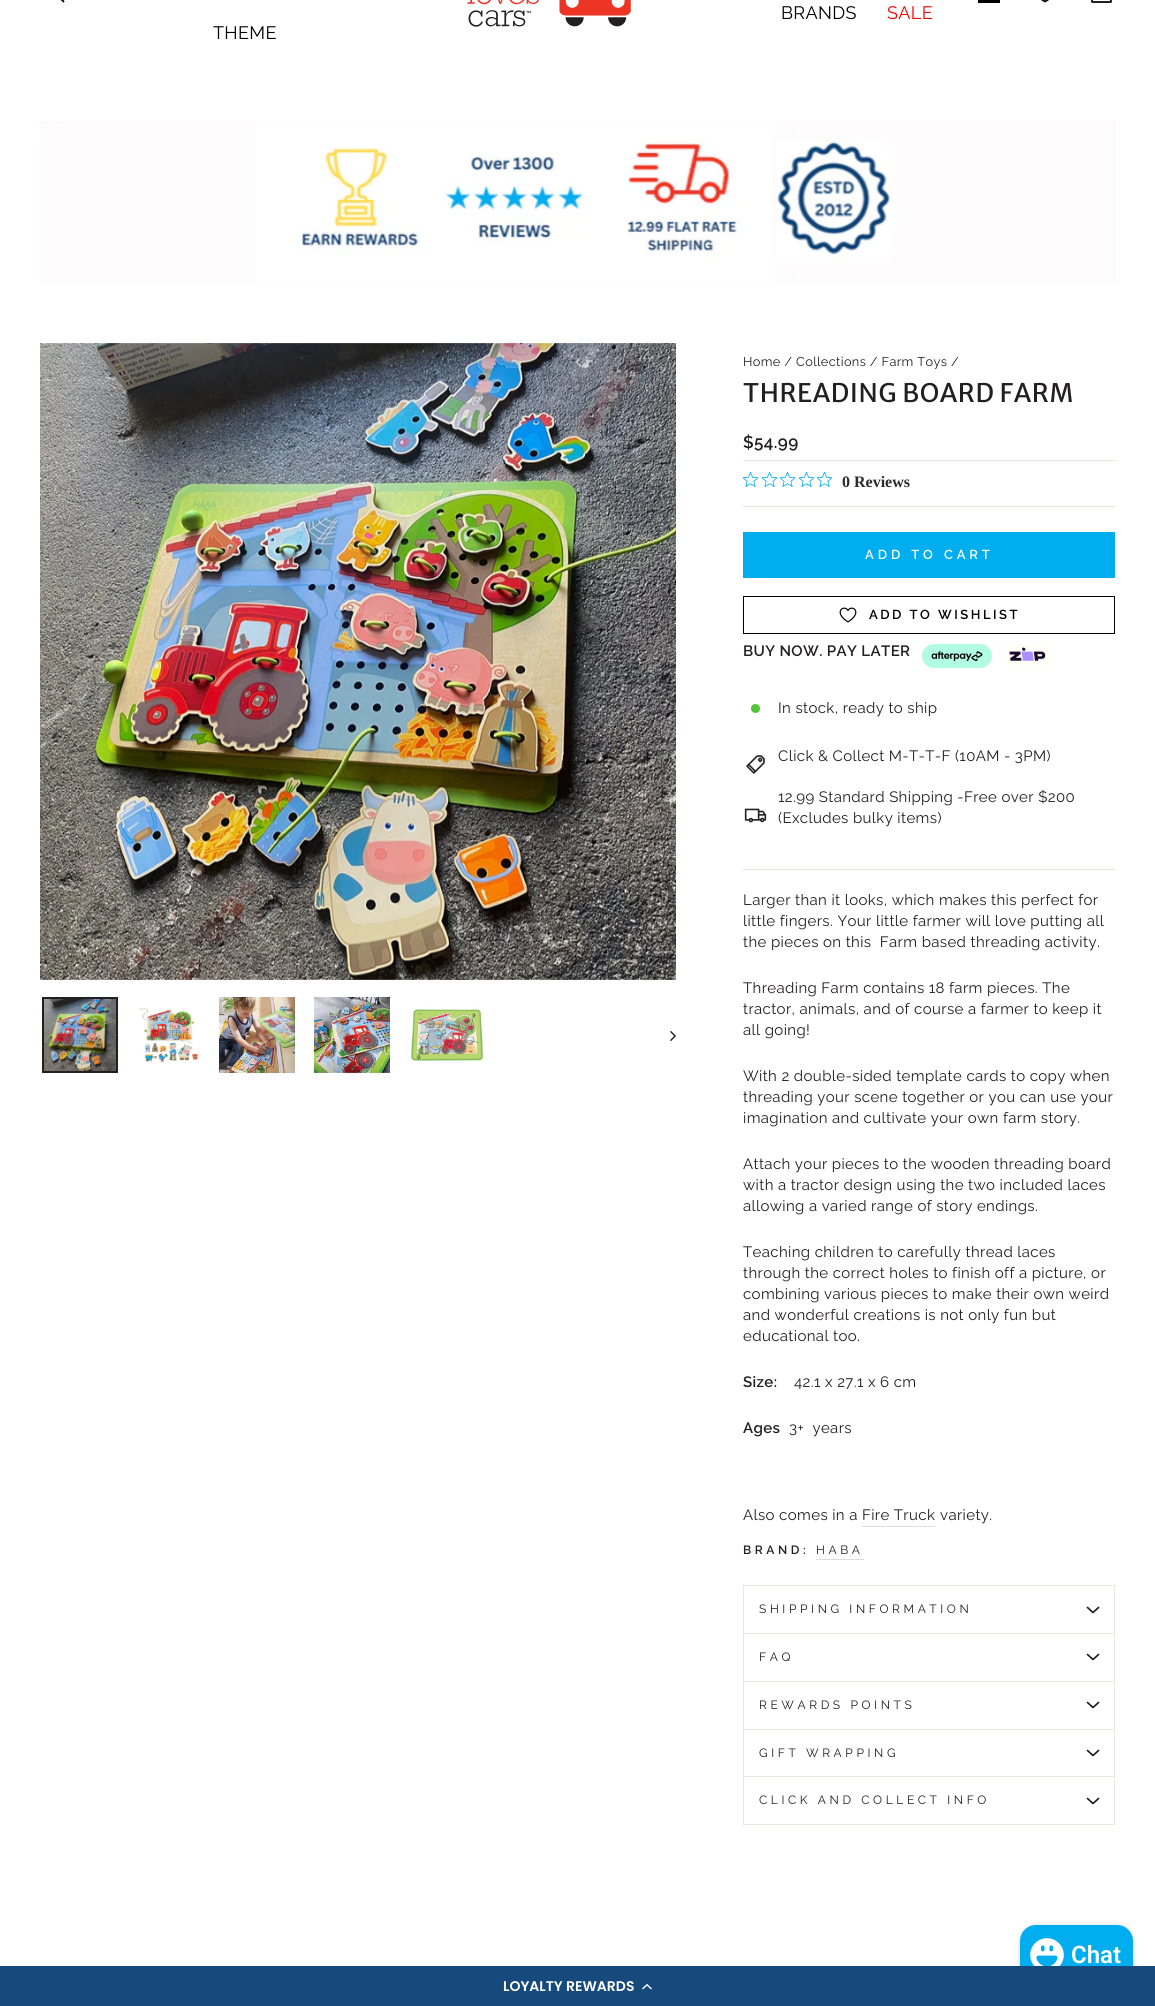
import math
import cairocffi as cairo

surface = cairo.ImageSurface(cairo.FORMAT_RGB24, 1155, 2006)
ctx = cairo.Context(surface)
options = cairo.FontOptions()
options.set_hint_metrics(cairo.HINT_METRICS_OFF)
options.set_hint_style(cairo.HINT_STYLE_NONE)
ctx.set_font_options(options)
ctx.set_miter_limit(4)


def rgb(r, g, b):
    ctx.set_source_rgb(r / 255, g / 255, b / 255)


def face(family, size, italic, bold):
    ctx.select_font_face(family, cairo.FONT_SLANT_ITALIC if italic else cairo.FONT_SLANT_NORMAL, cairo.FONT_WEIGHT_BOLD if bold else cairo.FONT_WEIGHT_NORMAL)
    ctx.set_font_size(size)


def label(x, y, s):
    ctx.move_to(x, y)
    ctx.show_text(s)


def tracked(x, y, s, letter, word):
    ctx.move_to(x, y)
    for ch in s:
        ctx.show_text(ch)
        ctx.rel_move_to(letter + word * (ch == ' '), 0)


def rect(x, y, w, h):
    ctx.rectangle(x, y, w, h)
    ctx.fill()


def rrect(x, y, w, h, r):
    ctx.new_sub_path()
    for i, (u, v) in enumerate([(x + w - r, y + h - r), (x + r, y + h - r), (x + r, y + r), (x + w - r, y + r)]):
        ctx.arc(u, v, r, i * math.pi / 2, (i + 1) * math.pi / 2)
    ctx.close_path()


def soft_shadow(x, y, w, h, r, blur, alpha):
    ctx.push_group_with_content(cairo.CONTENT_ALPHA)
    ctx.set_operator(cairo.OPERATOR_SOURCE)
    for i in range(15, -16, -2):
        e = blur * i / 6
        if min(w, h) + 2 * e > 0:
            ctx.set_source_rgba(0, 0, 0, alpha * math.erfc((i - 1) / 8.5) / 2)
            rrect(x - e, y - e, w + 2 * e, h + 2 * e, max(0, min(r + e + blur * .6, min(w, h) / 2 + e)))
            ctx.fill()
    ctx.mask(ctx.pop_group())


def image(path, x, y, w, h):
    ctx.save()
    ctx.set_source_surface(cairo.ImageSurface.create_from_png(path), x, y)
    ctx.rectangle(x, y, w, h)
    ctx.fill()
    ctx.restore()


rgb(255, 255, 255)
ctx.paint()
ctx.new_path()
ctx.move_to(60.5, -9.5)
ctx.curve_to(60.5, 1, 44.5, 1, 44.5, -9.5)
ctx.curve_to(44.5, -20, 60.5, -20, 60.5, -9.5)
ctx.close_path()
ctx.move_to(63.5, 1.5)
ctx.line_to(58.5, -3.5)
rgb(0, 0, 0)
ctx.set_line_width(1.8)
ctx.set_line_cap(cairo.LINE_CAP_ROUND)
ctx.set_line_join(cairo.LINE_JOIN_ROUND)
ctx.stroke()
rect(978, 0, 22, 3)
ctx.new_path()
ctx.move_to(1045, 1.5)
ctx.curve_to(1041.5, -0.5, 1038, -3, 1036, -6.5)
ctx.curve_to(1029.5, -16.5, 1042, -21.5, 1045, -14)
ctx.curve_to(1048, -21.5, 1060.5, -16.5, 1054, -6.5)
ctx.curve_to(1052, -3, 1048.5, -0.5, 1045, 1.5)
ctx.close_path()
ctx.stroke()
ctx.new_path()
ctx.move_to(1093.5, -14)
ctx.line_to(1109.5, -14)
ctx.line_to(1111, 2)
ctx.line_to(1092, 2)
ctx.close_path()
ctx.stroke()
image('image0.png', 467, 0, 164, 27)
face('Raleway', 18, 0, 0)
tracked(781, 19, 'BRANDS', 0.38, 0)
rgb(255, 0, 0)
tracked(887, 19, 'SALE', 0.38, 0)
rgb(0, 0, 0)
tracked(213, 39, 'THEME', 0.38, 0)
rgb(229, 229, 229)
rect(40, 121, 1075, 161)
image('image1.png', 40, 121, 1075, 161)
image('image2.png', 40, 343, 636, 637)
image('image3.png', 44, 999, 72, 72)
ctx.rectangle(43, 998, 74, 74)
rgb(35, 31, 32)
ctx.set_line_width(2)
ctx.set_line_cap(cairo.LINE_CAP_BUTT)
ctx.set_line_join(cairo.LINE_JOIN_MITER)
ctx.stroke()
image('image4.png', 137, 1003, 63, 64)
image('image5.png', 219, 997, 76, 76)
image('image6.png', 314, 997, 76, 76)
image('image7.png', 409, 997, 76, 76)
image('image8.png', 670, 1031, 6, 10)
face('Raleway', 12.75, 0, 0)
tracked(743, 366, 'Home / Collections / Farm Toys /', 0.38, 0)
face('Merriweather Sans', 25.5, 0, 0)
tracked(743, 402, 'THREADING BOARD FARM', 0.6, 0)
face('Raleway SemiBold', 17, 0, 0)
tracked(743, 448, '$54.99', 0.38, 0)
rgb(232, 232, 225)
rect(743, 460, 372, 1)
image('image9.png', 743, 472, 15, 15)
image('image9.png', 762, 472, 15, 15)
image('image9.png', 780, 472, 15, 15)
image('image9.png', 799, 472, 15, 15)
image('image9.png', 817, 472, 15, 15)
face('Liberation Serif', 16, 0, 1)
rgb(44, 44, 44)
label(842, 487, '0 Reviews')
rgb(232, 232, 225)
rect(743, 506, 372, 1)
rgb(0, 174, 239)
rect(743, 532, 372, 46)
face('Raleway SemiBold', 13, 0, 0)
rgb(255, 255, 255)
tracked(865, 559, 'ADD TO CART', 3.9, 0)
ctx.rectangle(743.5, 596.5, 371, 37)
rgb(0, 0, 0)
ctx.set_line_width(1)
ctx.stroke()
image('image10.png', 839, 607, 18, 16)
tracked(869, 619, 'ADD TO WISHLIST', 2.5, 0)
face('Raleway SemiBold', 15, 0, 0)
rgb(35, 31, 32)
tracked(743, 656, 'BUY NOW. PAY LATER', 0.38, 0)
image('image11.png', 922, 644, 70, 24)
image('image12.png', 1003, 644, 48, 22)
rgb(84, 198, 58)
ctx.arc(755.5, 708.5, 4.5, 0, 2 * math.pi)
ctx.fill()
face('Raleway', 15, 0, 0)
rgb(35, 31, 32)
tracked(778, 713, 'In stock, ready to ship', 0.38, 0)
image('image13.png', 746, 755, 19, 19)
tracked(778, 761, 'Click & Collect M-T-T-F (10AM - 3PM)', 0.38, 0)
image('image14.png', 744, 808, 23, 15)
tracked(778, 802, '12.99 Standard Shipping -Free over $200', 0.38, 0)
tracked(778, 823, '(Excludes bulky items)', 0.38, 0)
rgb(232, 232, 225)
rect(743, 869, 372, 1)
rgb(35, 31, 32)
tracked(743, 905, 'Larger than it looks, which makes this perfect for', 0.38, 0)
tracked(743, 926, 'little fingers. Your little farmer will love putting all', 0.38, 0)
tracked(743, 947, 'the pieces on this  Farm based threading activity.', 0.38, 0)
tracked(743, 993, 'Threading Farm contains 18 farm pieces. The', 0.38, 0)
tracked(743, 1014, 'tractor, animals, and of course a farmer to keep it', 0.38, 0)
tracked(743, 1035, 'all going!', 0.38, 0)
tracked(743, 1081, 'With 2 double-sided template cards to copy when', 0.38, 0)
tracked(743, 1102, 'threading your scene together or you can use your', 0.38, 0)
tracked(743, 1123, 'imagination and cultivate your own farm story.', 0.38, 0)
tracked(743, 1169, 'Attach your pieces to the wooden threading board', 0.38, 0)
tracked(743, 1190, 'with a tractor design using the two included laces', 0.38, 0)
tracked(743, 1211, 'allowing a varied range of story endings.', 0.38, 0)
tracked(743, 1257, 'Teaching children to carefully thread laces', 0.38, 0)
tracked(743, 1278, 'through the correct holes to finish off a picture, or', 0.38, 0)
tracked(743, 1299, 'combining various pieces to make their own weird', 0.38, 0)
tracked(743, 1320, 'and wonderful creations is not only fun but', 0.38, 0)
tracked(743, 1341, 'educational too.', 0.38, 0)
face('Raleway SemiBold', 15, 0, 0)
tracked(743, 1387, 'Size:', 0.38, 0)
face('Raleway', 15, 0, 0)
tracked(794, 1387, '42.1 x 27.1 x 6 cm', 0.38, 0)
face('Raleway SemiBold', 15, 0, 0)
tracked(743, 1433, 'Ages', 0.38, 0)
face('Raleway', 15, 0, 0)
tracked(789, 1433, '3+  years', 0.38, 0)
tracked(743, 1520, 'Also comes in a Fire Truck', 0.38, 0)
tracked(940, 1520, 'variety.', 0.38, 0)
rgb(222, 221, 222)
rect(862, 1526, 73, 1)
face('Raleway SemiBold', 12, 0, 0)
rgb(35, 31, 32)
tracked(743, 1554, 'BRAND:', 3.6, 0)
rgb(222, 221, 222)
rect(816, 1559, 48, 1)
face('Raleway', 12, 0, 0)
rgb(35, 31, 32)
tracked(816, 1554, 'HABA', 3.6, 0)
rgb(232, 232, 225)
rect(743, 1633, 372, 1)
rect(743, 1585, 372, 1)
rect(1114, 1585, 1, 48)
rect(743, 1585, 1, 48)
rgb(35, 31, 32)
tracked(759, 1613, 'SHIPPING INFORMATION', 3.6, 0)
ctx.new_path()
ctx.move_to(1087.5, 1607.5)
ctx.line_to(1093, 1612.5)
ctx.line_to(1098.5, 1607.5)
ctx.set_line_width(1.7)
ctx.set_line_cap(cairo.LINE_CAP_ROUND)
ctx.set_line_join(cairo.LINE_JOIN_ROUND)
ctx.stroke()
rgb(232, 232, 225)
rect(743, 1681, 372, 1)
rect(1114, 1634, 1, 47)
rect(743, 1634, 1, 47)
rgb(35, 31, 32)
tracked(759, 1661, 'FAQ', 3.6, 0)
ctx.new_path()
ctx.move_to(1087.5, 1654.5)
ctx.line_to(1093, 1659.5)
ctx.line_to(1098.5, 1654.5)
ctx.stroke()
rgb(232, 232, 225)
rect(743, 1729, 372, 1)
rect(1114, 1682, 1, 47)
rect(743, 1682, 1, 47)
rgb(35, 31, 32)
tracked(759, 1709, 'REWARDS POINTS', 3.6, 0)
ctx.new_path()
ctx.move_to(1087.5, 1702.5)
ctx.line_to(1093, 1707.5)
ctx.line_to(1098.5, 1702.5)
ctx.stroke()
rgb(232, 232, 225)
rect(743, 1776, 372, 1)
rect(1114, 1730, 1, 46)
rect(743, 1730, 1, 46)
rgb(35, 31, 32)
tracked(759, 1757, 'GIFT WRAPPING', 3.6, 0)
ctx.new_path()
ctx.move_to(1087.5, 1750.5)
ctx.line_to(1093, 1755.5)
ctx.line_to(1098.5, 1750.5)
ctx.stroke()
rgb(232, 232, 225)
rect(743, 1824, 372, 1)
rect(1114, 1777, 1, 47)
rect(743, 1777, 1, 47)
rgb(35, 31, 32)
tracked(759, 1804, 'CLICK AND COLLECT INFO', 3.6, 0)
ctx.new_path()
ctx.move_to(1087.5, 1798.5)
ctx.line_to(1093, 1803.5)
ctx.line_to(1098.5, 1798.5)
ctx.stroke()
rgb(0, 0, 0)
soft_shadow(1020, 1925, 113, 60, 16, 2.5, 0.15)
rgb(0, 174, 239)
rrect(1020, 1925, 113, 60, 16)
ctx.fill()
image('image15.png', 1030, 1938, 34, 28)
face('Roboto SemiBold', 24, 0, 0)
rgb(255, 255, 255)
label(1071, 1963, 'Chat')
rgb(23, 74, 124)
rect(0, 1966, 1155, 40)
face('Poppins SemiBold', 14, 0, 0)
rgb(255, 255, 255)
label(503, 1991, 'LOYALTY REWARDS')
image('image16.png', 642, 1984, 10, 6)
surface.write_to_png('render.png')
